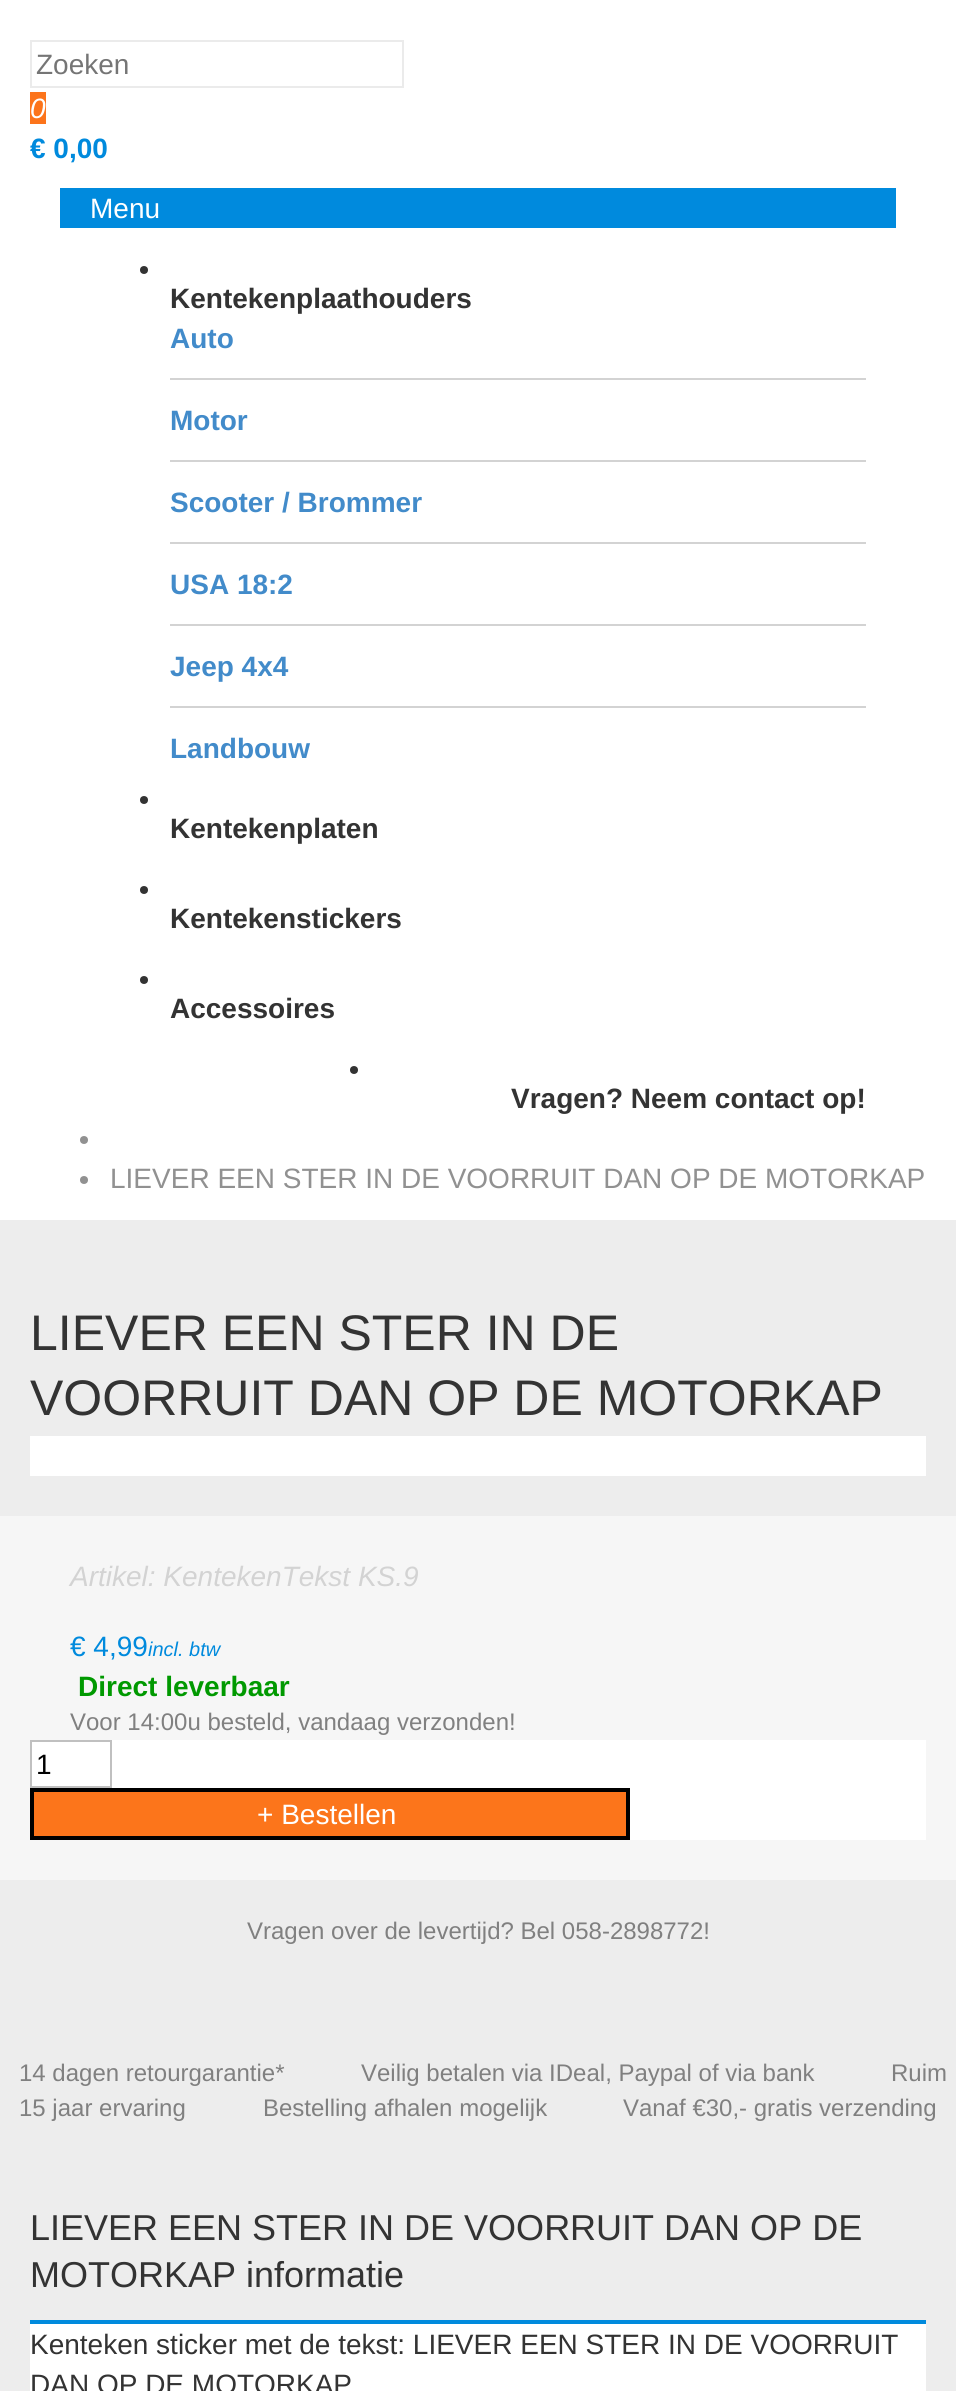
import math
import cairocffi as cairo

surface = cairo.ImageSurface(cairo.FORMAT_RGB24, 956, 2391)
ctx = cairo.Context(surface)
options = cairo.FontOptions()
options.set_hint_metrics(cairo.HINT_METRICS_OFF)
options.set_hint_style(cairo.HINT_STYLE_NONE)
ctx.set_font_options(options)
ctx.set_miter_limit(4)


def rgb(r, g, b):
    ctx.set_source_rgb(r / 255, g / 255, b / 255)


def face(family, size, italic, bold):
    ctx.select_font_face(family, cairo.FONT_SLANT_ITALIC if italic else cairo.FONT_SLANT_NORMAL, cairo.FONT_WEIGHT_BOLD if bold else cairo.FONT_WEIGHT_NORMAL)
    ctx.set_font_size(size)


def label(x, y, s):
    ctx.move_to(x, y)
    ctx.show_text(s)


def rect(x, y, w, h):
    ctx.rectangle(x, y, w, h)
    ctx.fill()


rgb(237, 237, 237)
ctx.paint()
rgb(255, 255, 255)
rect(0, 0, 956, 1220)
ctx.rectangle(31, 41, 372, 46)
rgb(235, 235, 235)
ctx.stroke()
face('Liberation Sans', 28, 0, 0)
rgb(117, 117, 117)
label(36, 74, 'Zoeken')
rgb(252, 116, 27)
rect(30, 92, 16, 32)
face('Liberation Sans', 28, 1, 0)
rgb(255, 255, 255)
label(30, 118, '0')
face('Liberation Sans', 28, 0, 1)
rgb(0, 138, 221)
label(30, 158, '€ 0,00')
rect(60, 188, 836, 40)
face('Liberation Sans', 28, 0, 0)
rgb(255, 255, 255)
label(90, 218, 'Menu')
rgb(51, 51, 51)
ctx.new_path()
ctx.arc(144, 270, 4, 0, 2 * math.pi)
ctx.fill()
face('Liberation Sans', 28, 0, 1)
label(170, 308, 'Kentekenplaathouders')
rgb(211, 211, 211)
rect(170, 378, 696, 2)
rgb(66, 139, 202)
label(170, 348, 'Auto')
rgb(211, 211, 211)
rect(170, 460, 696, 2)
rgb(66, 139, 202)
label(170, 430, 'Motor')
rgb(211, 211, 211)
rect(170, 542, 696, 2)
rgb(66, 139, 202)
label(170, 512, 'Scooter / Brommer')
rgb(211, 211, 211)
rect(170, 624, 696, 2)
rgb(66, 139, 202)
label(170, 594, 'USA 18:2')
rgb(211, 211, 211)
rect(170, 706, 696, 2)
rgb(66, 139, 202)
label(170, 676, 'Jeep 4x4')
label(170, 758, 'Landbouw')
rgb(51, 51, 51)
ctx.new_path()
ctx.arc(144, 800, 4, 0, 2 * math.pi)
ctx.fill()
label(170, 838, 'Kentekenplaten')
ctx.new_path()
ctx.arc(144, 890, 4, 0, 2 * math.pi)
ctx.fill()
label(170, 928, 'Kentekenstickers')
ctx.new_path()
ctx.arc(144, 980, 4, 0, 2 * math.pi)
ctx.fill()
label(170, 1018, 'Accessoires')
ctx.new_path()
ctx.arc(354, 1070, 4, 0, 2 * math.pi)
ctx.fill()
label(511, 1108, 'Vragen? Neem contact op!')
rgb(145, 145, 145)
ctx.new_path()
ctx.arc(84, 1140, 4, 0, 2 * math.pi)
ctx.fill()
ctx.arc(84, 1180, 4, 0, 2 * math.pi)
ctx.fill()
face('Liberation Sans', 28, 0, 0)
label(110, 1188, 'LIEVER EEN STER IN DE VOORRUIT DAN OP DE MOTORKAP')
face('Liberation Sans', 50, 0, 0)
rgb(51, 51, 51)
label(30, 1350, 'LIEVER EEN STER IN DE')
label(30, 1415, 'VOORRUIT DAN OP DE MOTORKAP')
rgb(255, 255, 255)
rect(30, 1436, 896, 40)
rgb(246, 246, 246)
rect(0, 1516, 956, 364)
face('Liberation Sans', 28, 1, 0)
rgb(211, 211, 211)
label(70, 1586, 'Artikel: KentekenTekst KS.9')
face('Liberation Sans', 28, 0, 0)
rgb(0, 138, 221)
label(70, 1656, '€ 4,99')
face('Liberation Sans', 20, 1, 0)
label(148, 1656, 'incl. btw')
face('Liberation Sans', 28, 0, 1)
rgb(0, 153, 0)
label(78, 1696, 'Direct leverbaar')
face('Liberation Sans', 24, 0, 0)
rgb(128, 128, 128)
label(70, 1730, 'Voor 14:00u besteld, vandaag verzonden!')
rgb(255, 255, 255)
rect(32, 1740, 894, 100)
ctx.rectangle(31, 1741, 80, 46)
rgb(192, 192, 192)
ctx.stroke()
face('Liberation Sans', 28, 0, 0)
rgb(0, 0, 0)
label(36, 1774, '1')
rgb(252, 117, 27)
ctx.rectangle(32, 1790, 596, 48)
ctx.fill_preserve()
rgb(0, 0, 0)
ctx.set_line_width(4)
ctx.stroke()
rgb(255, 255, 255)
label(257, 1824, '+ Bestellen')
face('Liberation Sans', 24, 0, 0)
rgb(128, 128, 128)
label(247, 1939, 'Vragen over de levertijd? Bel 058-2898772!')
label(19, 2081, '14 dagen retourgarantie*')
label(361, 2081, 'Veilig betalen via IDeal, Paypal of via bank')
label(891, 2081, 'Ruim')
label(19, 2116, '15 jaar ervaring')
label(263, 2116, 'Bestelling afhalen mogelijk')
label(623, 2116, 'Vanaf €30,- gratis verzending')
rgb(0, 138, 221)
rect(30, 2320, 896, 4)
face('Liberation Sans', 36, 0, 0)
rgb(51, 51, 51)
label(30, 2240, 'LIEVER EEN STER IN DE VOORRUIT DAN OP DE')
label(30, 2287, 'MOTORKAP informatie')
rgb(255, 255, 255)
rect(30, 2324, 896, 67)
face('Liberation Sans', 28, 0, 0)
rgb(51, 51, 51)
label(30, 2354, 'Kenteken sticker met de tekst: LIEVER EEN STER IN DE VOORRUIT')
label(30, 2394, 'DAN OP DE MOTORKAP')
surface.write_to_png('render.png')
